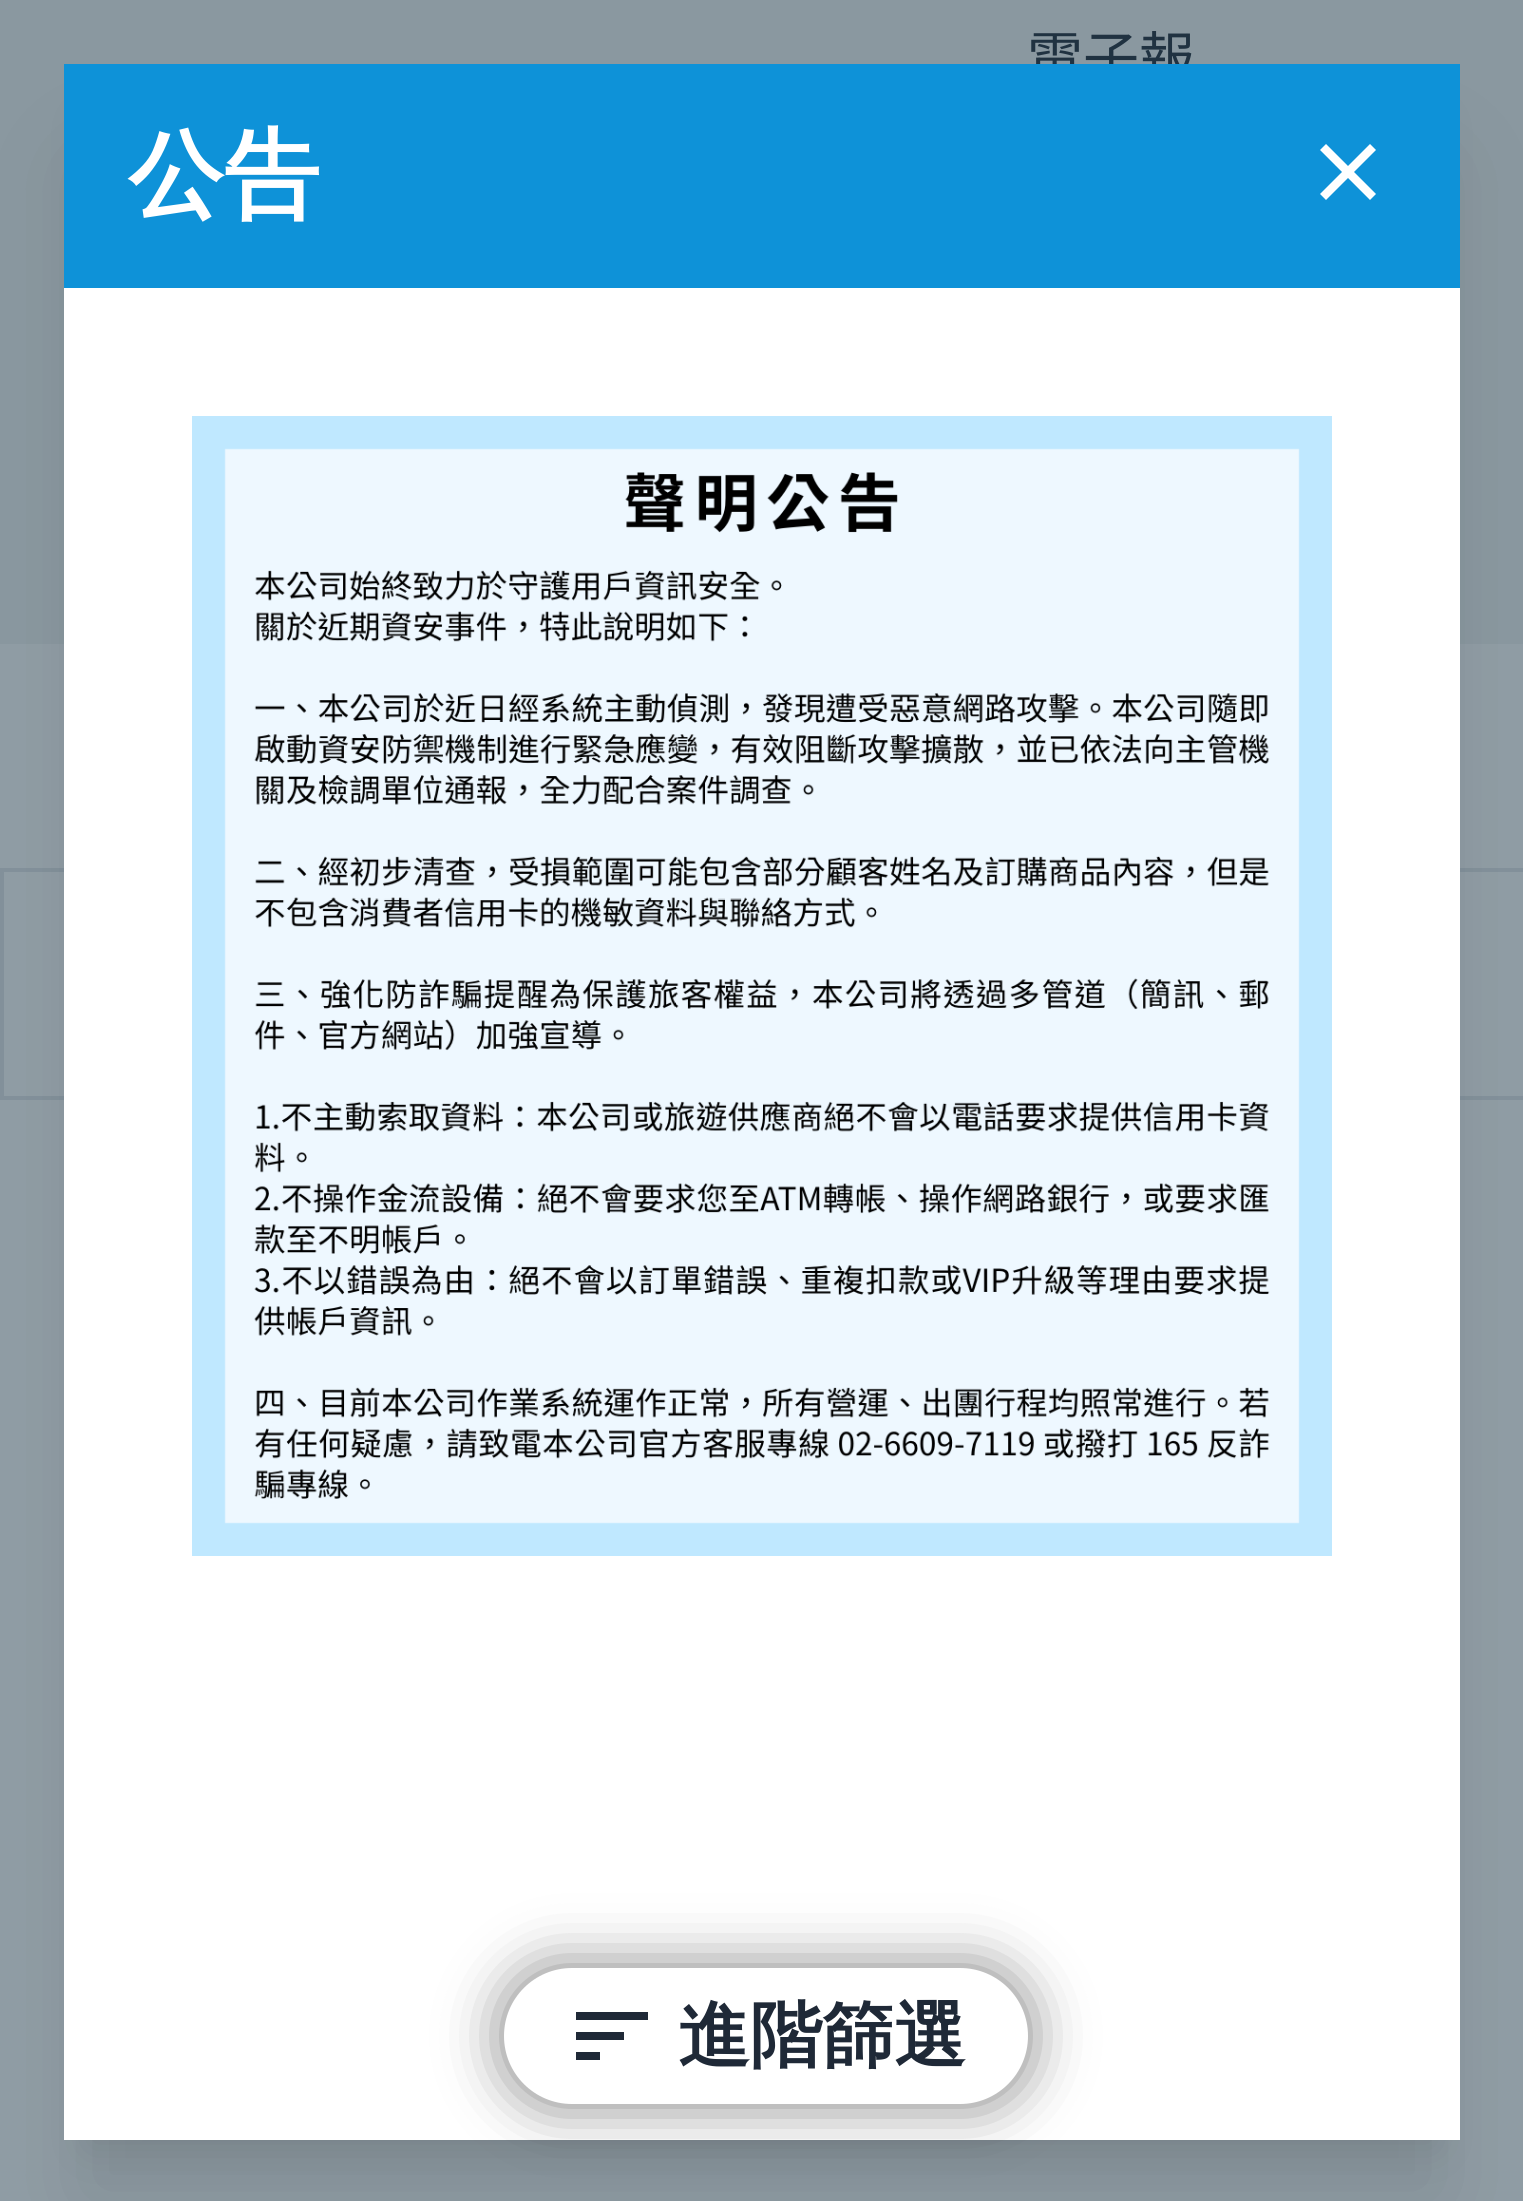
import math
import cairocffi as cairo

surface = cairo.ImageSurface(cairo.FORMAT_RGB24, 1523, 2201)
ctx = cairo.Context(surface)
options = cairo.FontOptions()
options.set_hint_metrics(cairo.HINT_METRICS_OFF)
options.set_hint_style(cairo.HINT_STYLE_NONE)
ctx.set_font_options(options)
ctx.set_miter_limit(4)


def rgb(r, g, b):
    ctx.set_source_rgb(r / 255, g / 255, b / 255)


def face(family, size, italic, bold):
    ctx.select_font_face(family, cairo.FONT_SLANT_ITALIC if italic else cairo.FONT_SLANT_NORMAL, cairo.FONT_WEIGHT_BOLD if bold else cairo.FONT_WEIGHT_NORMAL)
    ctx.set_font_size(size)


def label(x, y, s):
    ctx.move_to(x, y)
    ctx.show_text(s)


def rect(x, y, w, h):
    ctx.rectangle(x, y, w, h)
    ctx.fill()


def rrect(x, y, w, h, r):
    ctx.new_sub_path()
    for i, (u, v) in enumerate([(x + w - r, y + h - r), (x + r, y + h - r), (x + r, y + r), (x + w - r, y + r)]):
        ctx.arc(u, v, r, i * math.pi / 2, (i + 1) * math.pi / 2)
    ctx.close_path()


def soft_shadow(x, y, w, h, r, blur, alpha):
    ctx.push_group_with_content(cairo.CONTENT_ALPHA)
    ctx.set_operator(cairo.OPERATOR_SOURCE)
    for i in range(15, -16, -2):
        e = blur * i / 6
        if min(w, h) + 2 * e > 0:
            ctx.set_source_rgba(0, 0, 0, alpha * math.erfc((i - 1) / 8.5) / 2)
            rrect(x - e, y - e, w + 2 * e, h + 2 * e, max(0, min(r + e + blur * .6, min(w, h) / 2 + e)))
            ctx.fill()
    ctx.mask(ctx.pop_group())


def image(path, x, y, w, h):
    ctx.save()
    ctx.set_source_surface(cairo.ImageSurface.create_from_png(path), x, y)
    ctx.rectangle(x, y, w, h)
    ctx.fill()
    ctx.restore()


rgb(144, 157, 165)
ctx.paint()
rgb(138, 152, 160)
rect(0, 0, 1523, 644)
face('Noto Sans TC', 56, 0, 0)
rgb(32, 50, 65)
label(1027, 78, '電子報')
rgb(131, 145, 155)
rect(0, 868, 64, 4)
rect(1460, 868, 63, 4)
rect(0, 1096, 64, 4)
rect(0, 872, 4, 228)
rect(1460, 1096, 63, 4)
rgb(0, 0, 0)
soft_shadow(88, 120, 1348, 2028, 0, 20, 0.1)
soft_shadow(84, 164, 1356, 2036, 0, 50, 0.1)
rgb(14, 146, 216)
rect(64, 64, 1396, 224)
face('WenQuanYi Zen Hei', 96, 0, 1)
rgb(255, 255, 255)
label(128, 208, '公告')
ctx.new_path()
ctx.move_to(1326, 200)
ctx.line_to(1320, 194)
ctx.line_to(1342, 172)
ctx.line_to(1320, 150)
ctx.line_to(1326, 144)
ctx.line_to(1348, 166)
ctx.line_to(1370, 144)
ctx.line_to(1376, 150)
ctx.line_to(1354, 172)
ctx.line_to(1376, 194)
ctx.line_to(1370, 200)
ctx.line_to(1348, 178)
ctx.close_path()
ctx.fill()
rect(64, 288, 1396, 1852)
image('image0.png', 192, 416, 1140, 1140)
rgb(0, 0, 0)
soft_shadow(504, 1968, 524, 136, 68, 30, 0.5)
rgb(255, 255, 255)
rrect(504, 1968, 524, 136, 68)
ctx.fill()
rgb(31, 41, 55)
ctx.new_path()
ctx.move_to(576, 2040)
ctx.line_to(576, 2032)
ctx.line_to(624, 2032)
ctx.line_to(624, 2040)
ctx.close_path()
ctx.move_to(576, 2012)
ctx.line_to(648, 2012)
ctx.line_to(648, 2020)
ctx.line_to(576, 2020)
ctx.close_path()
ctx.move_to(576, 2060)
ctx.line_to(576, 2052)
ctx.line_to(600, 2052)
ctx.line_to(600, 2060)
ctx.close_path()
ctx.fill()
face('WenQuanYi Zen Hei', 72, 0, 1)
label(678, 2060, '進階篩選')
surface.write_to_png('render.png')
